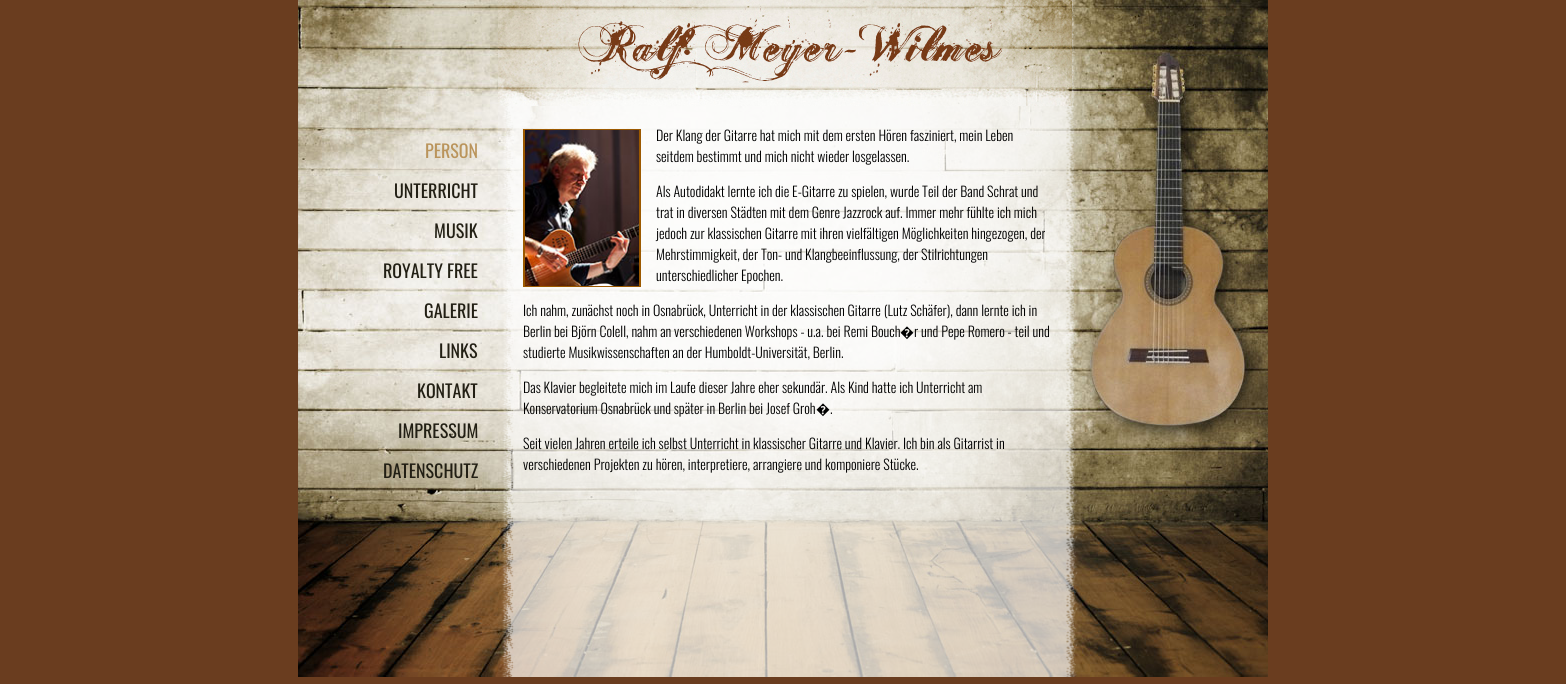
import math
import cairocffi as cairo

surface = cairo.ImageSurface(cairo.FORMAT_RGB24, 1566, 684)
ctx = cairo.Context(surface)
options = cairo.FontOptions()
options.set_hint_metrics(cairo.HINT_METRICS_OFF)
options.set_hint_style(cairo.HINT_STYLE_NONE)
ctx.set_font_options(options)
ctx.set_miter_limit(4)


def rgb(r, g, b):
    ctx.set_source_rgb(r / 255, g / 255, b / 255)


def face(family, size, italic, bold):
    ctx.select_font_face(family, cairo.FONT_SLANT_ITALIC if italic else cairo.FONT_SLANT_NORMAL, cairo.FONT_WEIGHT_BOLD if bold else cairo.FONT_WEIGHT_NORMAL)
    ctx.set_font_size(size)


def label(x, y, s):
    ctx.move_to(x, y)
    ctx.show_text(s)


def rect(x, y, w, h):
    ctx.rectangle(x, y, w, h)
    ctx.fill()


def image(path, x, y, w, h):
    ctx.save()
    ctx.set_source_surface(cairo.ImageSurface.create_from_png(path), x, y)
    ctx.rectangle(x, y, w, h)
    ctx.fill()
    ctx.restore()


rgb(106, 61, 31)
ctx.paint()
image('image0.png', 298, 0, 970, 677)
image('image1.png', 500, 0, 578, 677)
image('image2.png', 498, 0, 574, 106)
face('Oswald', 18, 0, 0)
rgb(186, 148, 91)
label(425, 158, 'PERSON')
rgb(34, 31, 20)
label(394, 198, 'UNTERRICHT')
label(434, 238, 'MUSIK')
label(383, 278, 'ROYALTY FREE')
label(424, 318, 'GALERIE')
label(439, 358, 'LINKS')
label(417, 398, 'KONTAKT')
label(398, 438, 'IMPRESSUM')
label(383, 478, 'DATENSCHUTZ')
rgb(156, 89, 0)
rect(523, 129, 118, 158)
image('image3.png', 525, 130, 114, 156)
face('Oswald Light', 14, 0, 0)
rgb(0, 0, 0)
label(656, 141, 'Der Klang der Gitarre hat mich mit dem ersten Hören fasziniert, mein Leben')
label(656, 162, 'seitdem bestimmt und mich nicht wieder losgelassen.')
label(656, 197, 'Als Autodidakt lernte ich die E-Gitarre zu spielen, wurde Teil der Band Schrat und')
label(656, 218, 'trat in diversen Städten mit dem Genre Jazzrock auf. Immer mehr fühlte ich mich')
label(656, 239, 'jedoch zur klassischen Gitarre mit ihren vielfältigen Möglichkeiten hingezogen, der')
label(656, 260, 'Mehrstimmigkeit, der Ton- und Klangbeeinflussung, der Stilrichtungen')
label(656, 281, 'unterschiedlicher Epochen.')
label(523, 316, 'Ich nahm, zunächst noch in Osnabrück, Unterricht in der klassischen Gitarre (Lutz Schäfer), dann lernte ich in')
label(523, 337, 'Berlin bei Björn Colell, nahm an verschiedenen Workshops - u.a. bei Remi Bouch')
face('Noto Sans Light', 14, 0, 0)
label(900, 337, '�')
face('Oswald Light', 14, 0, 0)
label(914, 337, 'r und Pepe Romero - teil und')
label(523, 358, 'studierte Musikwissenschaften an der Humboldt-Universität, Berlin.')
label(523, 393, 'Das Klavier begleitete mich im Laufe dieser Jahre eher sekundär. Als Kind hatte ich Unterricht am')
label(523, 414, 'Konservatorium Osnabrück und später in Berlin bei Josef Groh')
face('Noto Sans Light', 14, 0, 0)
label(816, 414, '�')
face('Oswald Light', 14, 0, 0)
label(830, 414, '.')
label(523, 449, 'Seit vielen Jahren erteile ich selbst Unterricht in klassischer Gitarre und Klavier. Ich bin als Gitarrist in')
label(523, 470, 'verschiedenen Projekten zu hören, interpretiere, arrangiere und komponiere Stücke.')
surface.write_to_png('render.png')
